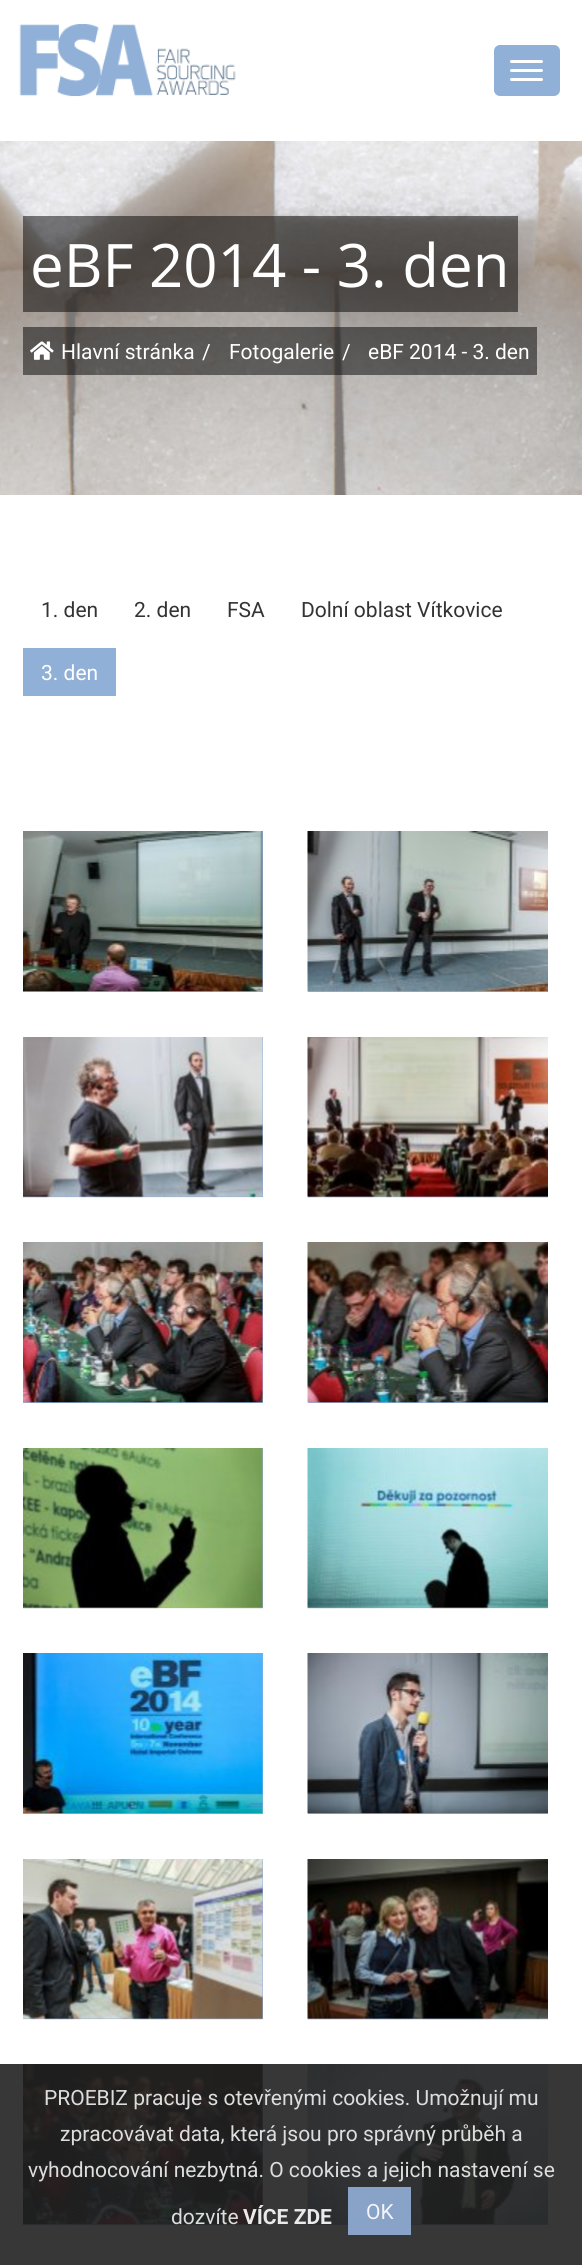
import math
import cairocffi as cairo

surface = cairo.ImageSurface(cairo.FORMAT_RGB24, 582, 2265)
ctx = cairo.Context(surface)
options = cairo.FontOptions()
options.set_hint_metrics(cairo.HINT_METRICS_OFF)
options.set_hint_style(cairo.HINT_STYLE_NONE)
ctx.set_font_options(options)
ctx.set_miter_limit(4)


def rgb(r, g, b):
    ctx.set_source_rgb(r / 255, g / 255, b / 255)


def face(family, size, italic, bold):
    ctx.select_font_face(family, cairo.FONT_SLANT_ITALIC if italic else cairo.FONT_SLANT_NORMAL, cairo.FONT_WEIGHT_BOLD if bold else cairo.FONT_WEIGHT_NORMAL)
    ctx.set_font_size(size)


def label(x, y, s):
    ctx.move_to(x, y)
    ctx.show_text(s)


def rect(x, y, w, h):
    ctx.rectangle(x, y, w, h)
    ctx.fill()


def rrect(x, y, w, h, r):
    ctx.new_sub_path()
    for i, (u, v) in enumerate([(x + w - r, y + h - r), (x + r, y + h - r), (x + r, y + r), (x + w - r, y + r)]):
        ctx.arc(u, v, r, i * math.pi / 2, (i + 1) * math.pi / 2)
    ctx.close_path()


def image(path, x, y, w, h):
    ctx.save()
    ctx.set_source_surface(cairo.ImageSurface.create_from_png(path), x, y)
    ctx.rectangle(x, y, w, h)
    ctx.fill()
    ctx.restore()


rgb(255, 255, 255)
ctx.paint()
rgb(55, 55, 55)
rect(0, 2064, 582, 201)
image('image0.png', 19, 24, 217, 73)
rgb(145, 176, 215)
rrect(495, 46, 64, 49, 5)
ctx.fill_preserve()
ctx.stroke()
rgb(255, 255, 255)
rrect(510, 60, 33, 3, 1.5)
ctx.fill()
rrect(510, 69, 33, 3, 1.5)
ctx.fill()
rrect(510, 78, 33, 3, 1.5)
ctx.fill()
image('image1.png', 0, 141, 582, 354)
ctx.set_source_rgba(0, 0, 0, 0.5)
rect(23, 216, 495, 96)
face('Open Sans', 60, 0, 0)
rgb(255, 255, 255)
label(30, 287, 'eBF 2014 - 3. den')
ctx.set_source_rgba(0, 0, 0, 0.5)
rect(23, 327, 514, 48)
image('image2.png', 30, 341, 24, 19)
face('Roboto', 21, 0, 0)
rgb(255, 255, 255)
label(61, 359, 'Hlavní stránka')
label(202, 359, '/')
label(229, 359, 'Fotogalerie')
label(342, 359, '/')
label(368, 359, 'eBF 2014 - 3. den')
rgb(51, 51, 51)
label(41, 617, '1. den')
label(134, 617, '2. den')
label(227, 617, 'FSA')
label(301, 617, 'Dolní oblast Vítkovice')
rgb(145, 176, 215)
rect(23, 648, 93, 48)
rgb(255, 255, 255)
label(41, 680, '3. den')
rgb(145, 176, 215)
rect(23, 831, 240, 161)
image('image3.png', 23, 831, 240, 161)
rect(308, 991, 240, 1)
image('image4.png', 307, 831, 241, 161)
rect(23, 1037, 240, 160)
image('image5.png', 23, 1037, 240, 161)
rect(308, 1196, 240, 1)
image('image6.png', 307, 1037, 241, 161)
rect(23, 1242, 240, 161)
image('image7.png', 23, 1242, 240, 161)
rect(308, 1402, 240, 1)
image('image8.png', 307, 1242, 241, 161)
rect(23, 1448, 240, 160)
image('image9.png', 23, 1448, 240, 161)
rect(308, 1607, 240, 1)
image('image10.png', 307, 1448, 241, 161)
rect(23, 1653, 240, 161)
image('image11.png', 23, 1653, 240, 161)
rect(308, 1813, 240, 1)
image('image12.png', 307, 1653, 241, 161)
rect(23, 1859, 240, 160)
image('image13.png', 23, 1859, 240, 161)
rect(308, 2018, 240, 1)
image('image14.png', 307, 1859, 241, 161)
rgb(44, 47, 51)
rect(23, 2064, 240, 161)
image('image15.png', 23, 2064, 240, 161)
rect(308, 2224, 240, 1)
image('image16.png', 307, 2064, 241, 161)
rgb(221, 221, 221)
label(44, 2105, 'PROEBIZ pracuje s otevřenými cookies. Umožnují mu')
label(60, 2141, 'zpracovávat data, která jsou pro správný průběh a')
label(28, 2177, 'vyhodnocování nezbytná. O cookies a jejich nastavení se')
label(171, 2224, 'dozvíte')
face('Roboto', 21, 0, 1)
rgb(234, 234, 234)
label(243, 2224, 'VÍCE ZDE')
ctx.set_source_rgba(0.569, 0.69, 0.843, 0.9)
rect(348, 2187, 63, 48)
face('Roboto', 21, 0, 0)
rgb(243, 246, 249)
label(366, 2219, 'OK')
surface.write_to_png('render.png')
